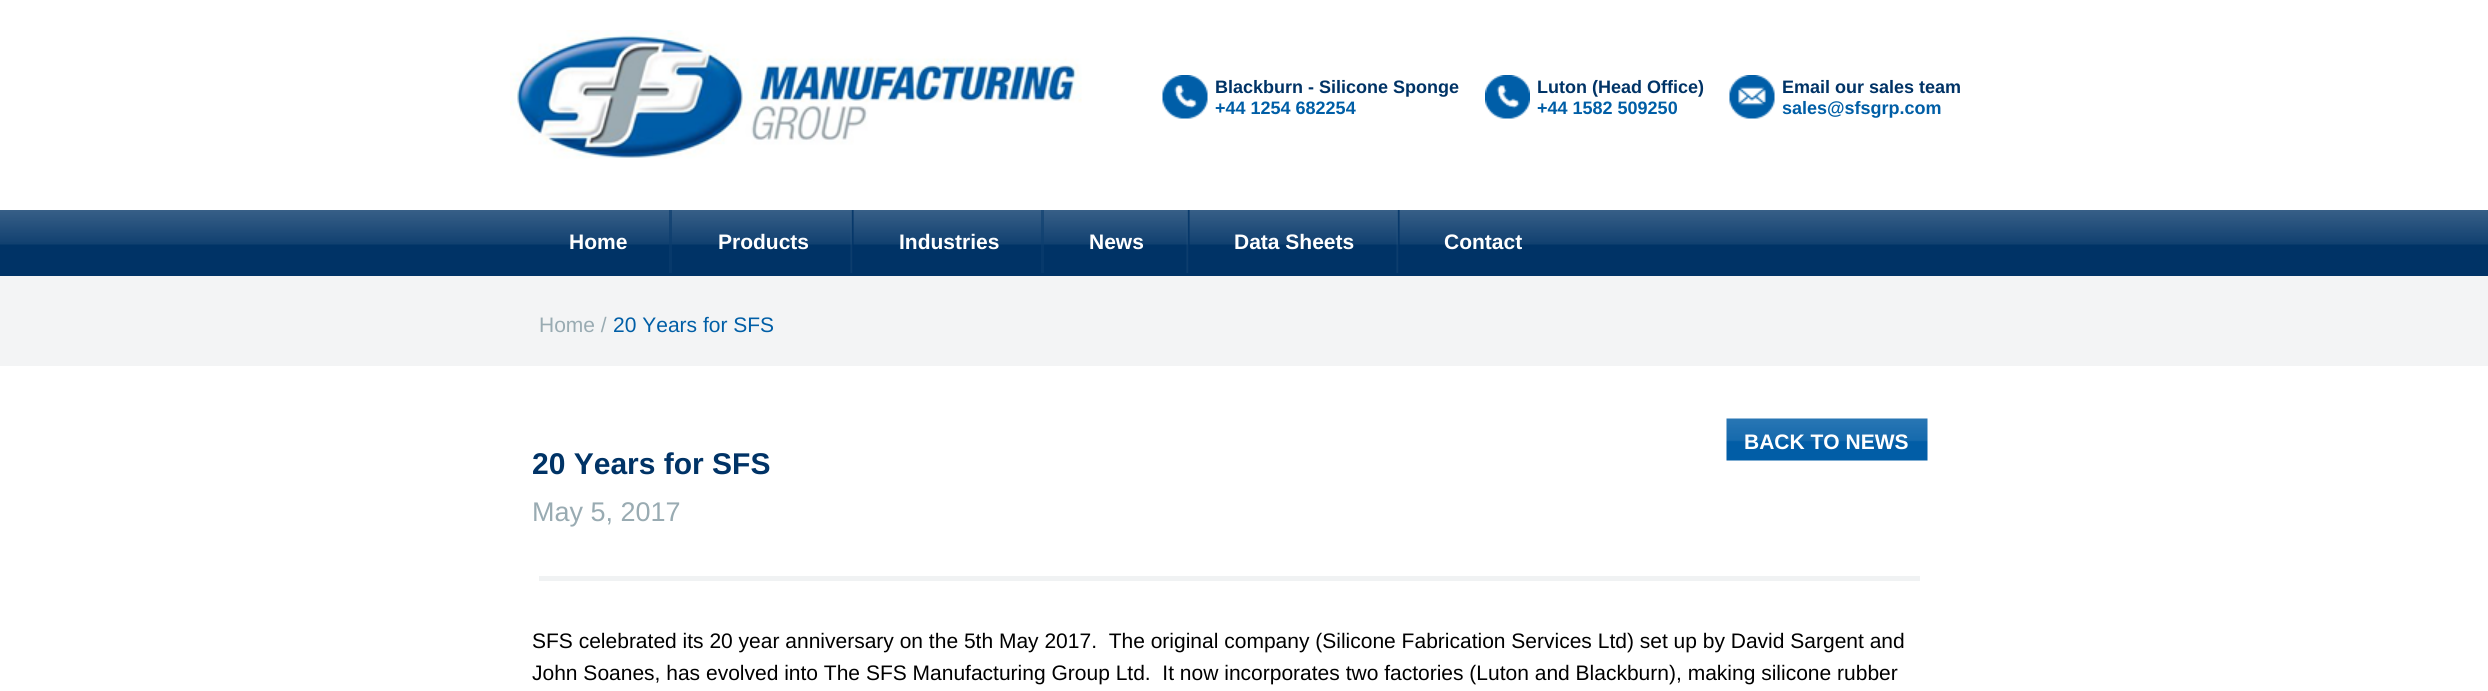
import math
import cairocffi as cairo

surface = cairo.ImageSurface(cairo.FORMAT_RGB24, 2488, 691)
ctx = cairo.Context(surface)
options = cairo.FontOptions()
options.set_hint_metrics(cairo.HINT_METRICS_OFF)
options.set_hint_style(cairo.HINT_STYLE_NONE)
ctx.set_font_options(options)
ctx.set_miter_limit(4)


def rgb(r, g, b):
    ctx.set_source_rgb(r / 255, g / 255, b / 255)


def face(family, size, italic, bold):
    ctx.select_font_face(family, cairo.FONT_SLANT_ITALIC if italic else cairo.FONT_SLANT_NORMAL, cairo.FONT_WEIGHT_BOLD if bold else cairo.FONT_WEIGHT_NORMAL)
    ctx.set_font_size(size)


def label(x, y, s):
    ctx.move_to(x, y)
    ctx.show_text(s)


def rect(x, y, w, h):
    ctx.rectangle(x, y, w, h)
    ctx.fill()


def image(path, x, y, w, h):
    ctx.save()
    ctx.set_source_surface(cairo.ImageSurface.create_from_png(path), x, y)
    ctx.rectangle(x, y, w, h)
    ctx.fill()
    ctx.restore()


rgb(255, 255, 255)
ctx.paint()
image('image0.png', 510, 30, 572, 129)
image('image1.png', 1162, 75, 46, 44)
face('Liberation Sans', 18, 0, 1)
rgb(0, 51, 102)
label(1215, 93, 'Blackburn - Silicone Sponge')
rgb(0, 94, 166)
label(1215, 114, '+44 1254 682254')
image('image2.png', 1485, 75, 45, 44)
rgb(0, 51, 102)
label(1537, 93, 'Luton (Head Office)')
rgb(0, 94, 166)
label(1537, 114, '+44 1582 509250')
image('image3.png', 1729, 75, 46, 44)
rgb(0, 51, 102)
label(1782, 93, 'Email our sales team')
rgb(0, 94, 166)
label(1782, 114, 'sales@sfsgrp.com')
image('image4.png', 0, 210, 2488, 66)
face('Liberation Sans', 21, 0, 1)
rgb(255, 255, 255)
label(569, 249, 'Home')
ctx.set_source_rgba(0.043, 0.235, 0.427, 0.65)
rect(669, 210, 3, 63)
rgb(255, 255, 255)
label(718, 249, 'Products')
image('image5.png', 850, 210, 4, 63)
label(899, 249, 'Industries')
ctx.set_source_rgba(0.051, 0.247, 0.435, 0.6)
rect(1041, 210, 3, 63)
rgb(255, 255, 255)
label(1089, 249, 'News')
image('image5.png', 1186, 210, 4, 63)
label(1234, 249, 'Data Sheets')
image('image5.png', 1396, 210, 4, 63)
label(1444, 249, 'Contact')
rgb(243, 244, 245)
rect(0, 276, 2488, 90)
face('Liberation Sans', 21, 0, 0)
rgb(153, 171, 178)
label(539, 332, 'Home /')
rgb(0, 94, 166)
label(613, 332, '20 Years for SFS')
image('image6.png', 1726, 418, 202, 43)
face('Liberation Sans', 21, 0, 1)
rgb(255, 255, 255)
label(1744, 449, 'BACK TO NEWS')
face('Liberation Sans', 30, 0, 1)
rgb(0, 51, 102)
label(532, 474, '20 Years for SFS')
face('Liberation Sans', 27, 0, 0)
rgb(153, 171, 178)
label(532, 521, 'May 5, 2017')
rgb(240, 242, 243)
rect(539, 576, 1381, 5)
face('Liberation Sans', 21, 0, 0)
rgb(0, 0, 0)
label(532, 648, 'SFS celebrated its 20 year anniversary on the 5th May 2017.  The original company (Silicone Fabrication Services Ltd) set up by David Sargent and')
label(532, 680, 'John Soanes, has evolved into The SFS Manufacturing Group Ltd.  It now incorporates two factories (Luton and Blackburn), making silicone rubber')
surface.write_to_png('render.png')
